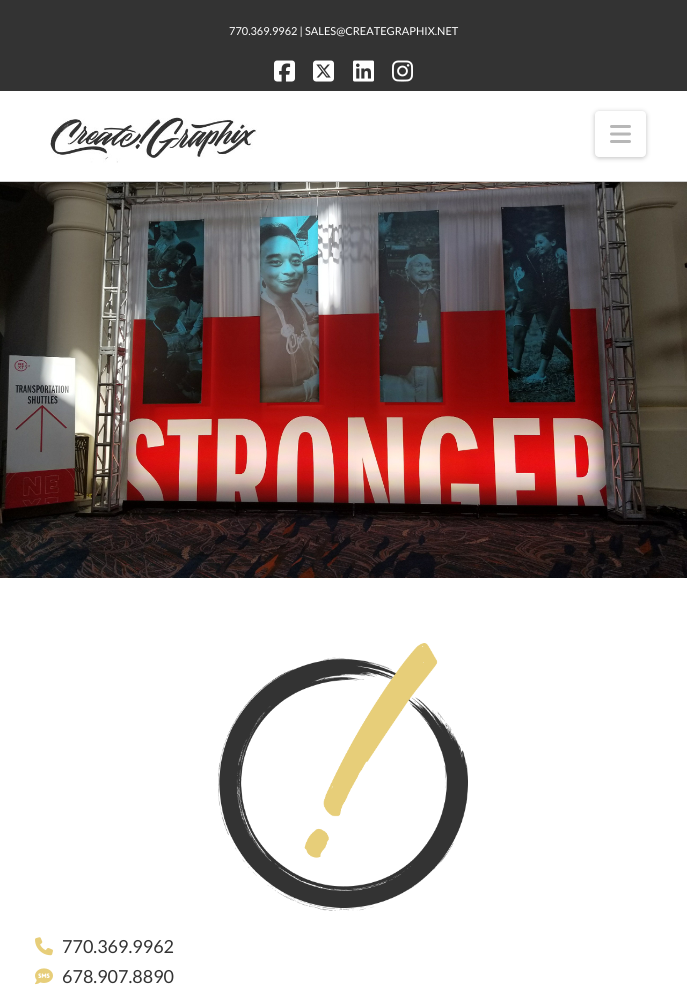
import math
import cairocffi as cairo

surface = cairo.ImageSurface(cairo.FORMAT_RGB24, 687, 991)
ctx = cairo.Context(surface)
options = cairo.FontOptions()
options.set_hint_metrics(cairo.HINT_METRICS_OFF)
options.set_hint_style(cairo.HINT_STYLE_NONE)
ctx.set_font_options(options)
ctx.set_miter_limit(4)


def rgb(r, g, b):
    ctx.set_source_rgb(r / 255, g / 255, b / 255)


def face(family, size, italic, bold):
    ctx.select_font_face(family, cairo.FONT_SLANT_ITALIC if italic else cairo.FONT_SLANT_NORMAL, cairo.FONT_WEIGHT_BOLD if bold else cairo.FONT_WEIGHT_NORMAL)
    ctx.set_font_size(size)


def label(x, y, s):
    ctx.move_to(x, y)
    ctx.show_text(s)


def rect(x, y, w, h):
    ctx.rectangle(x, y, w, h)
    ctx.fill()


def rrect(x, y, w, h, r):
    ctx.new_sub_path()
    for i, (u, v) in enumerate([(x + w - r, y + h - r), (x + r, y + h - r), (x + r, y + r), (x + w - r, y + r)]):
        ctx.arc(u, v, r, i * math.pi / 2, (i + 1) * math.pi / 2)
    ctx.close_path()


def soft_shadow(x, y, w, h, r, blur, alpha):
    ctx.push_group_with_content(cairo.CONTENT_ALPHA)
    ctx.set_operator(cairo.OPERATOR_SOURCE)
    for i in range(15, -16, -2):
        e = blur * i / 6
        if min(w, h) + 2 * e > 0:
            ctx.set_source_rgba(0, 0, 0, alpha * math.erfc((i - 1) / 8.5) / 2)
            rrect(x - e, y - e, w + 2 * e, h + 2 * e, max(0, min(r + e + blur * .6, min(w, h) / 2 + e)))
            ctx.fill()
    ctx.mask(ctx.pop_group())


def image(path, x, y, w, h):
    ctx.save()
    ctx.set_source_surface(cairo.ImageSurface.create_from_png(path), x, y)
    ctx.rectangle(x, y, w, h)
    ctx.fill()
    ctx.restore()


rgb(255, 255, 255)
ctx.paint()
image('image6.png', 0, 182, 687, 396)
ctx.save()
ctx.rectangle(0, 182, 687, 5)
ctx.clip()
rgb(0, 0, 0)
soft_shadow(0, 93, 687, 91, 0, 2.5, 0.13)
ctx.restore()
rgb(51, 51, 51)
rect(0, 0, 687, 91)
face('Lato', 11, 0, 0)
rgb(255, 255, 255)
label(229, 35, '770.369.9962 | SALES@CREATEGRAPHIX.NET')
image('image0.png', 274, 60, 21, 22)
image('image1.png', 313, 60, 21, 22)
image('image2.png', 353, 60, 21, 22)
image('image3.png', 392, 60, 21, 22)
rgb(204, 204, 204)
rect(0, 181, 687, 1)
image('image4.png', 50, 117, 207, 46)
rgb(0, 0, 0)
soft_shadow(595, 112, 51, 46, 4, 2.5, 0.25)
rgb(255, 255, 255)
rrect(595, 111, 51, 46, 4)
ctx.fill()
image('image5.png', 610, 125, 21, 18)
image('image7.png', 218, 643, 250, 268)
image('image8.png', 35, 937, 18, 19)
face('Lato', 18, 0, 0)
rgb(51, 51, 51)
label(62, 953, '770.369.9962')
image('image9.png', 35, 968, 18, 17)
label(62, 983, '678.907.8890')
surface.write_to_png('render.png')
